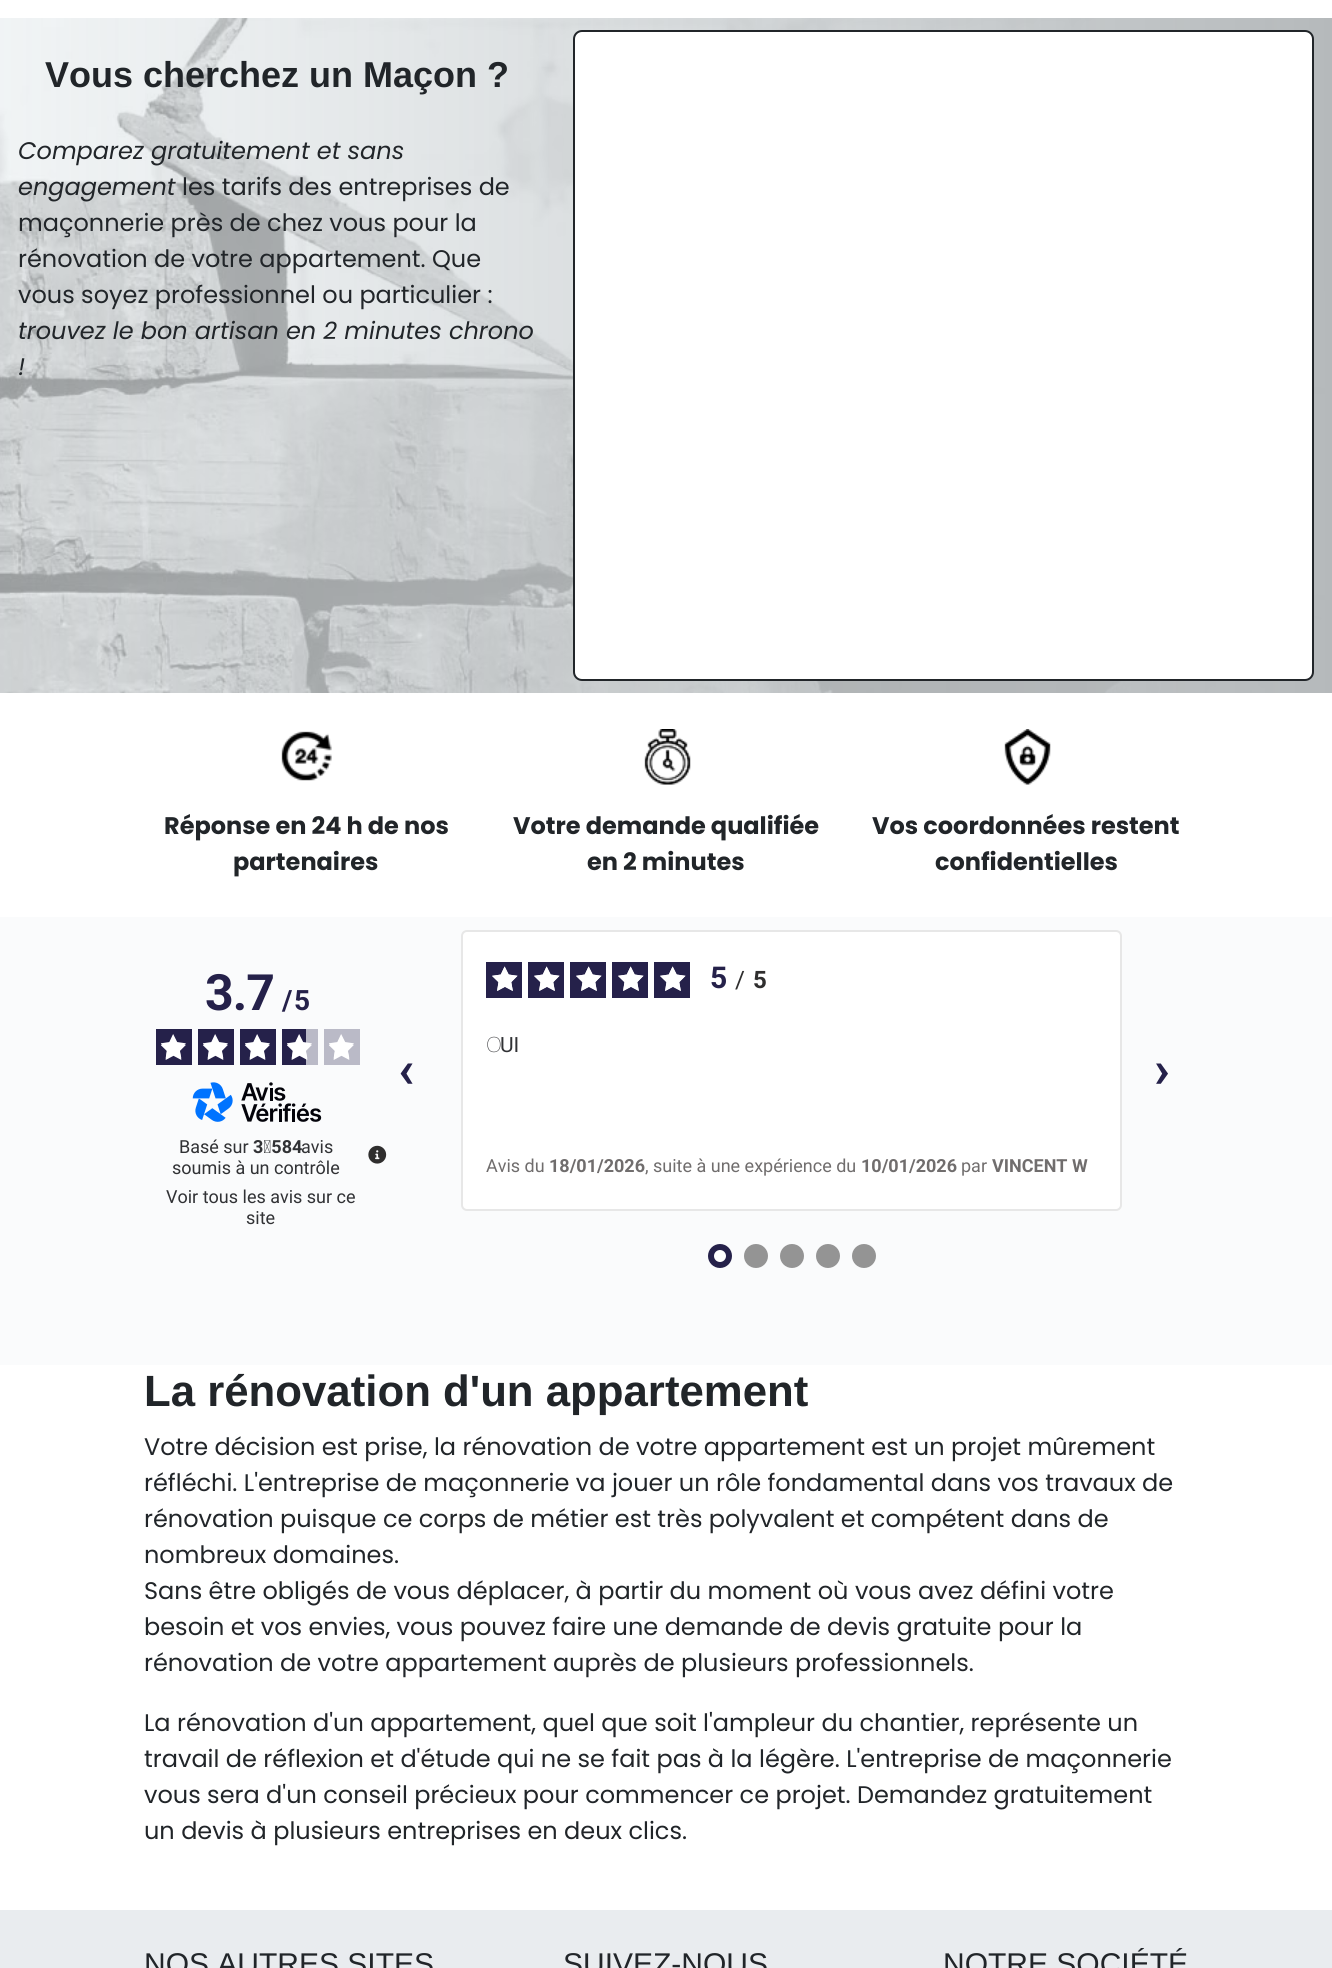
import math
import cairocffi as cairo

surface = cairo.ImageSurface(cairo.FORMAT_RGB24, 1332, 1968)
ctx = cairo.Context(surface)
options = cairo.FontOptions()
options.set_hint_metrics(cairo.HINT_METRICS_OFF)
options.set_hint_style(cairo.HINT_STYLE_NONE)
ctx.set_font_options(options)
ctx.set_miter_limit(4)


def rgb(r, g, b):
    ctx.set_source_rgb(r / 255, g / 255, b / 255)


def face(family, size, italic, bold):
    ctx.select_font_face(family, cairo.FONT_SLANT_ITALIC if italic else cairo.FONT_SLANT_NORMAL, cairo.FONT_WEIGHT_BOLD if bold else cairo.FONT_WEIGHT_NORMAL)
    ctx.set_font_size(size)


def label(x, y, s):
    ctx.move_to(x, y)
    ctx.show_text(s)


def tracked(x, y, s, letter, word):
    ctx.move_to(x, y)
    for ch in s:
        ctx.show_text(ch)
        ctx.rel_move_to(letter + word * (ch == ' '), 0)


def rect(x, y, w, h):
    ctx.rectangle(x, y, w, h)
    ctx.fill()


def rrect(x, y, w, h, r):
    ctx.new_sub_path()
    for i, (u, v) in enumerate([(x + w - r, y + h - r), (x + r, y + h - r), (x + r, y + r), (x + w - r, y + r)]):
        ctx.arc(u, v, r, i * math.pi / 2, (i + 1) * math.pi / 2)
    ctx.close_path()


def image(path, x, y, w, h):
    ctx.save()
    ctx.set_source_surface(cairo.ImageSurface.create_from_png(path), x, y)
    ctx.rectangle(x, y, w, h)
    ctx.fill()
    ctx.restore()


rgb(255, 255, 255)
ctx.paint()
image('image0.png', 0, 18, 1332, 675)
face('Liberation Sans', 36, 0, 1)
rgb(33, 37, 41)
label(45, 87, 'Vous cherchez un Maçon ?')
face('Poppins', 24, 1, 0)
label(18, 159, 'Comparez gratuitement et sans')
label(18, 195, 'engagement')
face('Poppins', 24, 0, 0)
label(182, 195, 'les tarifs des entreprises de')
label(18, 231, 'maçonnerie près de chez vous pour la')
label(18, 267, 'rénovation de votre appartement. Que')
label(18, 303, 'vous soyez professionnel ou particulier :')
face('Poppins', 24, 1, 0)
label(18, 339, 'trouvez le bon artisan en 2 minutes chrono')
label(18, 375, '!')
rgb(255, 255, 255)
rrect(574, 31, 739, 649, 8)
ctx.fill_preserve()
rgb(33, 37, 41)
ctx.stroke()
image('image1.png', 281, 731, 51, 50)
face('Poppins', 24, 0, 1)
label(164, 834, 'Réponse en 24 h de nos')
label(233, 870, 'partenaires')
image('image2.png', 644, 729, 47, 56)
label(513, 834, 'Votre demande qualifiée')
label(587, 870, 'en 2 minutes')
image('image3.png', 1004, 729, 47, 56)
label(872, 834, 'Vos coordonnées restent')
label(935, 870, 'confidentielles')
rgb(250, 251, 252)
rect(0, 917, 1332, 448)
face('Roboto', 50, 0, 1)
rgb(37, 33, 74)
tracked(205, 1010, '3.7', -1, 0)
face('Roboto', 28, 0, 1)
tracked(282, 1010, '/', -1, 0)
tracked(294, 1010, '5', -1, 0)
rect(156, 1029, 36, 36)
image('image5.png', 161, 1035, 25, 25)
image('image4.png', 161, 1034, 25, 25)
rect(198, 1029, 36, 36)
image('image5.png', 203, 1035, 25, 25)
image('image4.png', 203, 1034, 25, 25)
rect(240, 1029, 36, 36)
image('image5.png', 245, 1035, 25, 25)
image('image4.png', 245, 1034, 25, 25)
rect(282, 1029, 24, 36)
rgb(186, 186, 199)
rect(306, 1029, 12, 36)
image('image7.png', 287, 1035, 25, 25)
image('image6.png', 287, 1034, 25, 25)
rect(324, 1029, 36, 36)
image('image9.png', 329, 1035, 25, 25)
image('image8.png', 329, 1034, 25, 25)
image('image10.png', 192, 1082, 130, 40)
face('Roboto', 18, 0, 0)
rgb(49, 50, 53)
label(179, 1153, 'Basé sur')
face('Roboto', 18, 0, 1)
label(253, 1153, '3 584')
face('Roboto', 18, 0, 0)
label(301, 1153, 'avis')
label(172, 1174, 'soumis à un contrôle')
image('image11.png', 368, 1145, 19, 19)
label(166, 1203, 'Voir tous les avis sur ce')
label(246, 1224, 'site')
face('Roboto', 52, 0, 1)
rgb(37, 33, 74)
label(398, 1087, '‹')
rgb(255, 255, 255)
rrect(462, 931, 659, 279, 5)
ctx.fill_preserve()
rgb(231, 231, 231)
ctx.stroke()
rgb(37, 33, 74)
rect(486, 962, 36, 36)
image('image12.png', 492, 966, 26, 25)
image('image13.png', 492, 966, 26, 25)
rect(528, 962, 36, 36)
image('image12.png', 534, 966, 26, 25)
image('image13.png', 534, 966, 26, 25)
rect(570, 962, 36, 36)
image('image12.png', 576, 966, 26, 25)
image('image13.png', 576, 966, 26, 25)
rect(612, 962, 36, 36)
image('image12.png', 618, 966, 26, 25)
image('image13.png', 618, 966, 26, 25)
rect(654, 962, 36, 36)
image('image12.png', 660, 966, 26, 25)
image('image13.png', 660, 966, 26, 25)
face('Roboto', 30, 0, 1)
tracked(710, 988, '5', 1, 0)
face('Roboto', 24, 0, 0)
rgb(47, 46, 46)
tracked(735, 988, '/', 1, 0)
face('Roboto', 24, 0, 1)
tracked(753, 988, '5', 1, 0)
face('Noto Sans Thin', 21, 0, 0)
rgb(49, 50, 53)
label(486, 1052, 'O')
face('Roboto', 21, 0, 0)
label(500, 1052, 'UI')
face('Roboto', 18, 0, 0)
rgb(112, 109, 109)
label(486, 1172, 'Avis du')
face('Roboto', 18, 0, 1)
label(549, 1172, '18/01/2026')
face('Roboto', 18, 0, 0)
label(645, 1172, ', suite à une expérience du')
face('Roboto', 18, 0, 1)
label(861, 1172, '10/01/2026')
face('Roboto', 18, 0, 0)
label(961, 1172, 'par')
face('Roboto', 18, 0, 1)
label(992, 1172, 'VINCENT W')
face('Roboto', 52, 0, 1)
rgb(37, 33, 74)
label(1154, 1087, '›')
rgb(255, 255, 255)
ctx.new_path()
ctx.arc(720, 1256, 9, 0, 2 * math.pi)
ctx.fill_preserve()
rgb(37, 33, 74)
ctx.set_line_width(6)
ctx.stroke()
rgb(148, 148, 148)
ctx.arc(756, 1256, 12, 0, 2 * math.pi)
ctx.fill()
ctx.arc(792, 1256, 12, 0, 2 * math.pi)
ctx.fill()
ctx.arc(828, 1256, 12, 0, 2 * math.pi)
ctx.fill()
ctx.arc(864, 1256, 12, 0, 2 * math.pi)
ctx.fill()
face('Liberation Sans', 43.75, 0, 1)
rgb(33, 37, 41)
label(144, 1406, 'La rénovation d\'un appartement')
face('Poppins', 24, 0, 0)
label(144, 1455, 'Votre décision est prise, la rénovation de votre appartement est un projet mûrement')
label(144, 1491, 'réfléchi. L\'entreprise de maçonnerie va jouer un rôle fondamental dans vos travaux de')
label(144, 1527, 'rénovation puisque ce corps de métier est très polyvalent et compétent dans de')
label(144, 1563, 'nombreux domaines.')
label(144, 1599, 'Sans être obligés de vous déplacer, à partir du moment où vous avez défini votre')
label(144, 1635, 'besoin et vos envies, vous pouvez faire une demande de devis gratuite pour la')
label(144, 1671, 'rénovation de votre appartement auprès de plusieurs professionnels.')
label(144, 1731, 'La rénovation d\'un appartement, quel que soit l\'ampleur du chantier, représente un')
label(144, 1767, 'travail de réflexion et d\'étude qui ne se fait pas à la légère. L\'entreprise de maçonnerie')
label(144, 1803, 'vous sera d\'un conseil précieux pour commencer ce projet. Demandez gratuitement')
label(144, 1839, 'un devis à plusieurs entreprises en deux clics.')
rgb(233, 236, 239)
rect(0, 1910, 1332, 58)
face('Liberation Sans', 30, 0, 0)
rgb(33, 37, 41)
label(144, 1974, 'NOS AUTRES SITES')
label(563, 1974, 'SUIVEZ-NOUS')
label(943, 1974, 'NOTRE SOCIÉTÉ')
surface.write_to_png('render.png')
